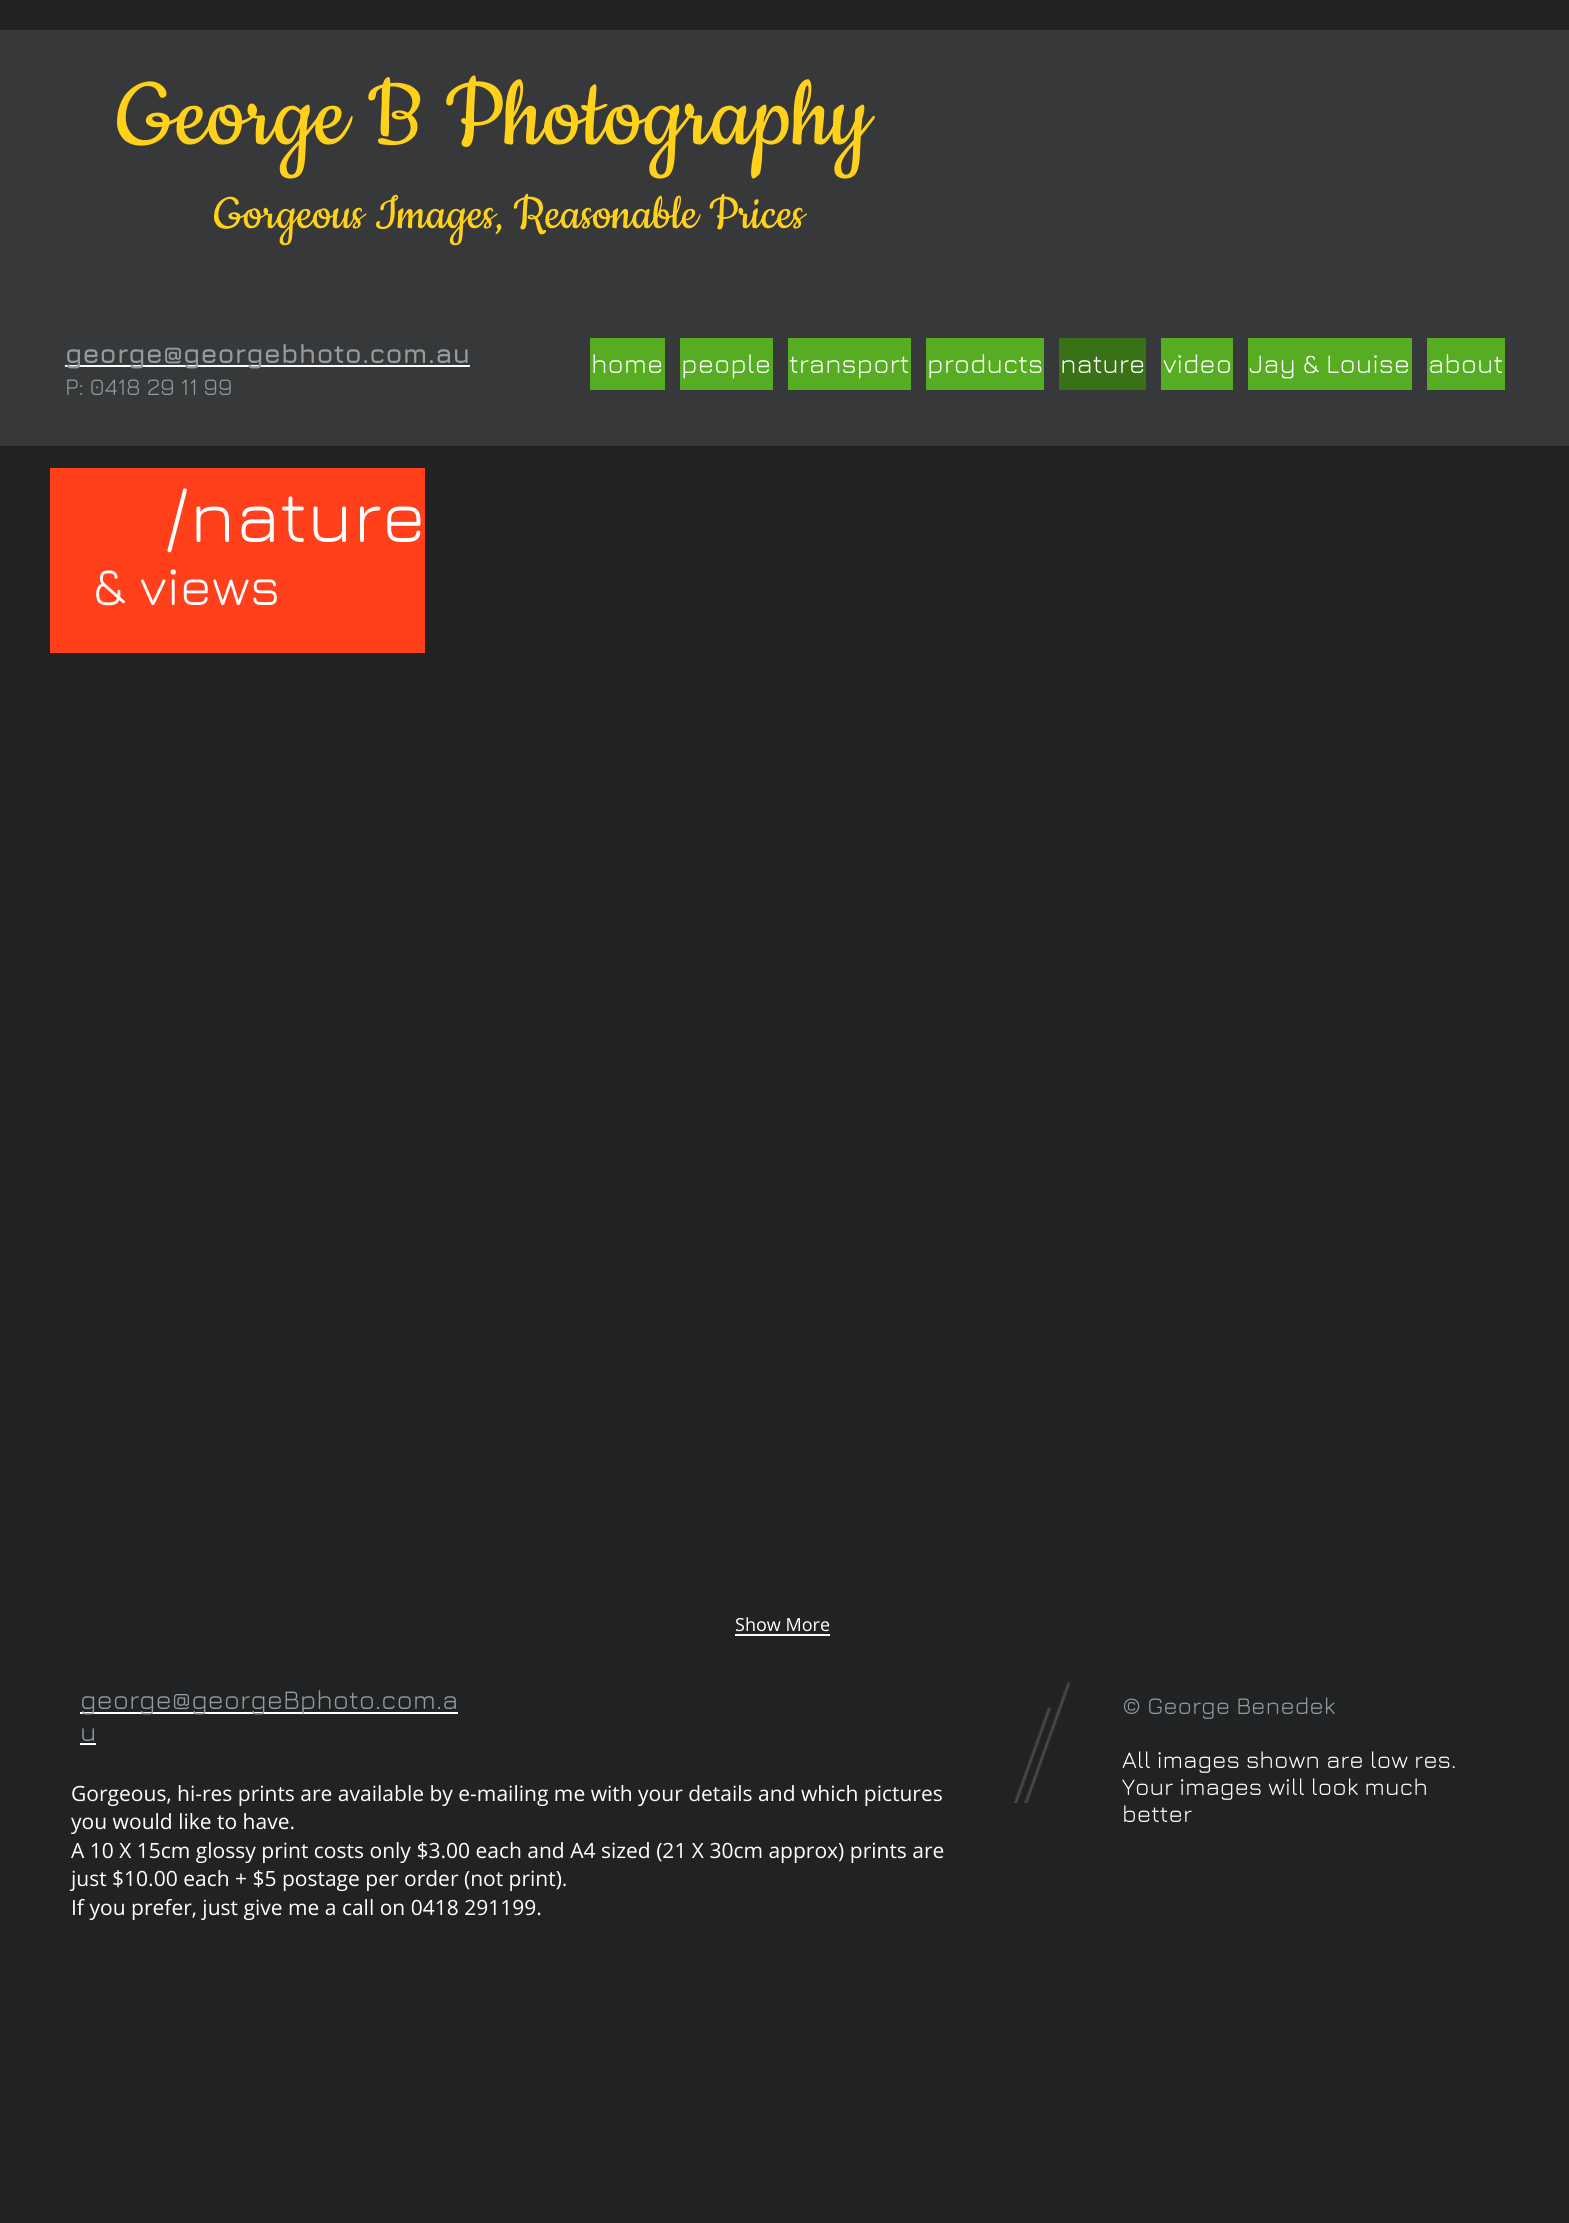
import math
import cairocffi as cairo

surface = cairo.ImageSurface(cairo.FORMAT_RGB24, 1569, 2223)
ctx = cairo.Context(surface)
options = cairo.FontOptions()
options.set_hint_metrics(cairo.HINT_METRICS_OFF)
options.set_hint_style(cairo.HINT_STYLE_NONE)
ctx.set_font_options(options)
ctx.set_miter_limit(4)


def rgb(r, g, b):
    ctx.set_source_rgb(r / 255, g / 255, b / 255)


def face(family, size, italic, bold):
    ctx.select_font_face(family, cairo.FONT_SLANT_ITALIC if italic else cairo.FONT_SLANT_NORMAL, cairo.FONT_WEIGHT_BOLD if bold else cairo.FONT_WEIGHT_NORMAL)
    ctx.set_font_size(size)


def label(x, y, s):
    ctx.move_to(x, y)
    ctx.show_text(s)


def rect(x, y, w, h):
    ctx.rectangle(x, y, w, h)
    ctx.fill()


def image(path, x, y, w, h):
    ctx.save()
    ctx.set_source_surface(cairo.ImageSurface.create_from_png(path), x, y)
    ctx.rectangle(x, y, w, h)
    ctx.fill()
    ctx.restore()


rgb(32, 34, 35)
ctx.paint()
rgb(54, 56, 57)
rect(0, 30, 1569, 416)
face('Cookie', 108, 0, 0)
rgb(255, 209, 26)
label(117, 144, 'George B Photography')
face('Cookie', 54, 0, 0)
label(214, 228, 'Gorgeous Images, Reasonable Prices')
rgb(255, 255, 255)
rect(65, 365, 405, 2)
face('Jura', 27, 0, 1)
rgb(150, 154, 156)
label(65, 363, 'george@georgebhoto.com.au')
face('Jura', 24, 0, 0)
label(65, 395, 'P: 0418 29 11 99')
rgb(86, 173, 33)
rect(590, 338, 75, 52)
face('Jura', 27, 0, 0)
rgb(255, 255, 255)
label(591, 373, 'home')
rgb(86, 173, 33)
rect(680, 338, 93, 52)
rgb(255, 255, 255)
label(681, 373, 'people')
rgb(86, 173, 33)
rect(788, 338, 123, 52)
rgb(255, 255, 255)
label(789, 373, 'transport')
rgb(86, 173, 33)
rect(926, 338, 118, 52)
rgb(255, 255, 255)
label(927, 373, 'products')
rgb(57, 113, 22)
rect(1059, 338, 87, 52)
rgb(255, 255, 255)
label(1060, 373, 'nature')
rgb(86, 173, 33)
rect(1161, 338, 72, 52)
rgb(255, 255, 255)
label(1163, 373, 'video')
rgb(86, 173, 33)
rect(1248, 338, 164, 52)
rgb(255, 255, 255)
label(1249, 373, 'Jay & Louise')
rgb(86, 173, 33)
rect(1427, 338, 78, 52)
rgb(255, 255, 255)
label(1428, 373, 'about')
rgb(255, 64, 27)
rect(50, 468, 375, 185)
face('Jura', 75, 0, 0)
rgb(255, 255, 255)
label(164, 542, '/nature')
face('Jura', 54, 0, 0)
label(93, 605, '& views')
face('Open Sans', 18, 0, 0)
label(735, 1631, 'Show More')
rect(735, 1634, 95, 2)
rect(80, 1712, 378, 2)
face('Jura', 27, 0, 0)
rgb(150, 154, 156)
label(80, 1709, 'george@georgeBphoto.com.a')
label(80, 1741, 'u')
rgb(255, 255, 255)
rect(80, 1743, 16, 2)
image('image0.png', 1014, 1681, 57, 122)
face('Jura', 24, 0, 0)
rgb(150, 154, 156)
label(1122, 1714, '© George Benedek')
rgb(255, 255, 255)
label(1122, 1768, 'All images shown are low res.')
label(1122, 1795, 'Your images will look much')
label(1122, 1822, 'better')
face('Open Sans', 21, 0, 0)
label(71, 1801, 'Gorgeous, hi-res prints are available by e-mailing me with your details and which pictures')
label(71, 1829, 'you would like to have.')
label(71, 1858, 'A 10 X 15cm glossy print costs only $3.00 each and A4 sized (21 X 30cm approx) prints are')
label(71, 1886, 'just $10.00 each + $5 postage per order (not print).')
label(71, 1915, 'If you prefer, just give me a call on 0418 291199.')
surface.write_to_png('render.png')
